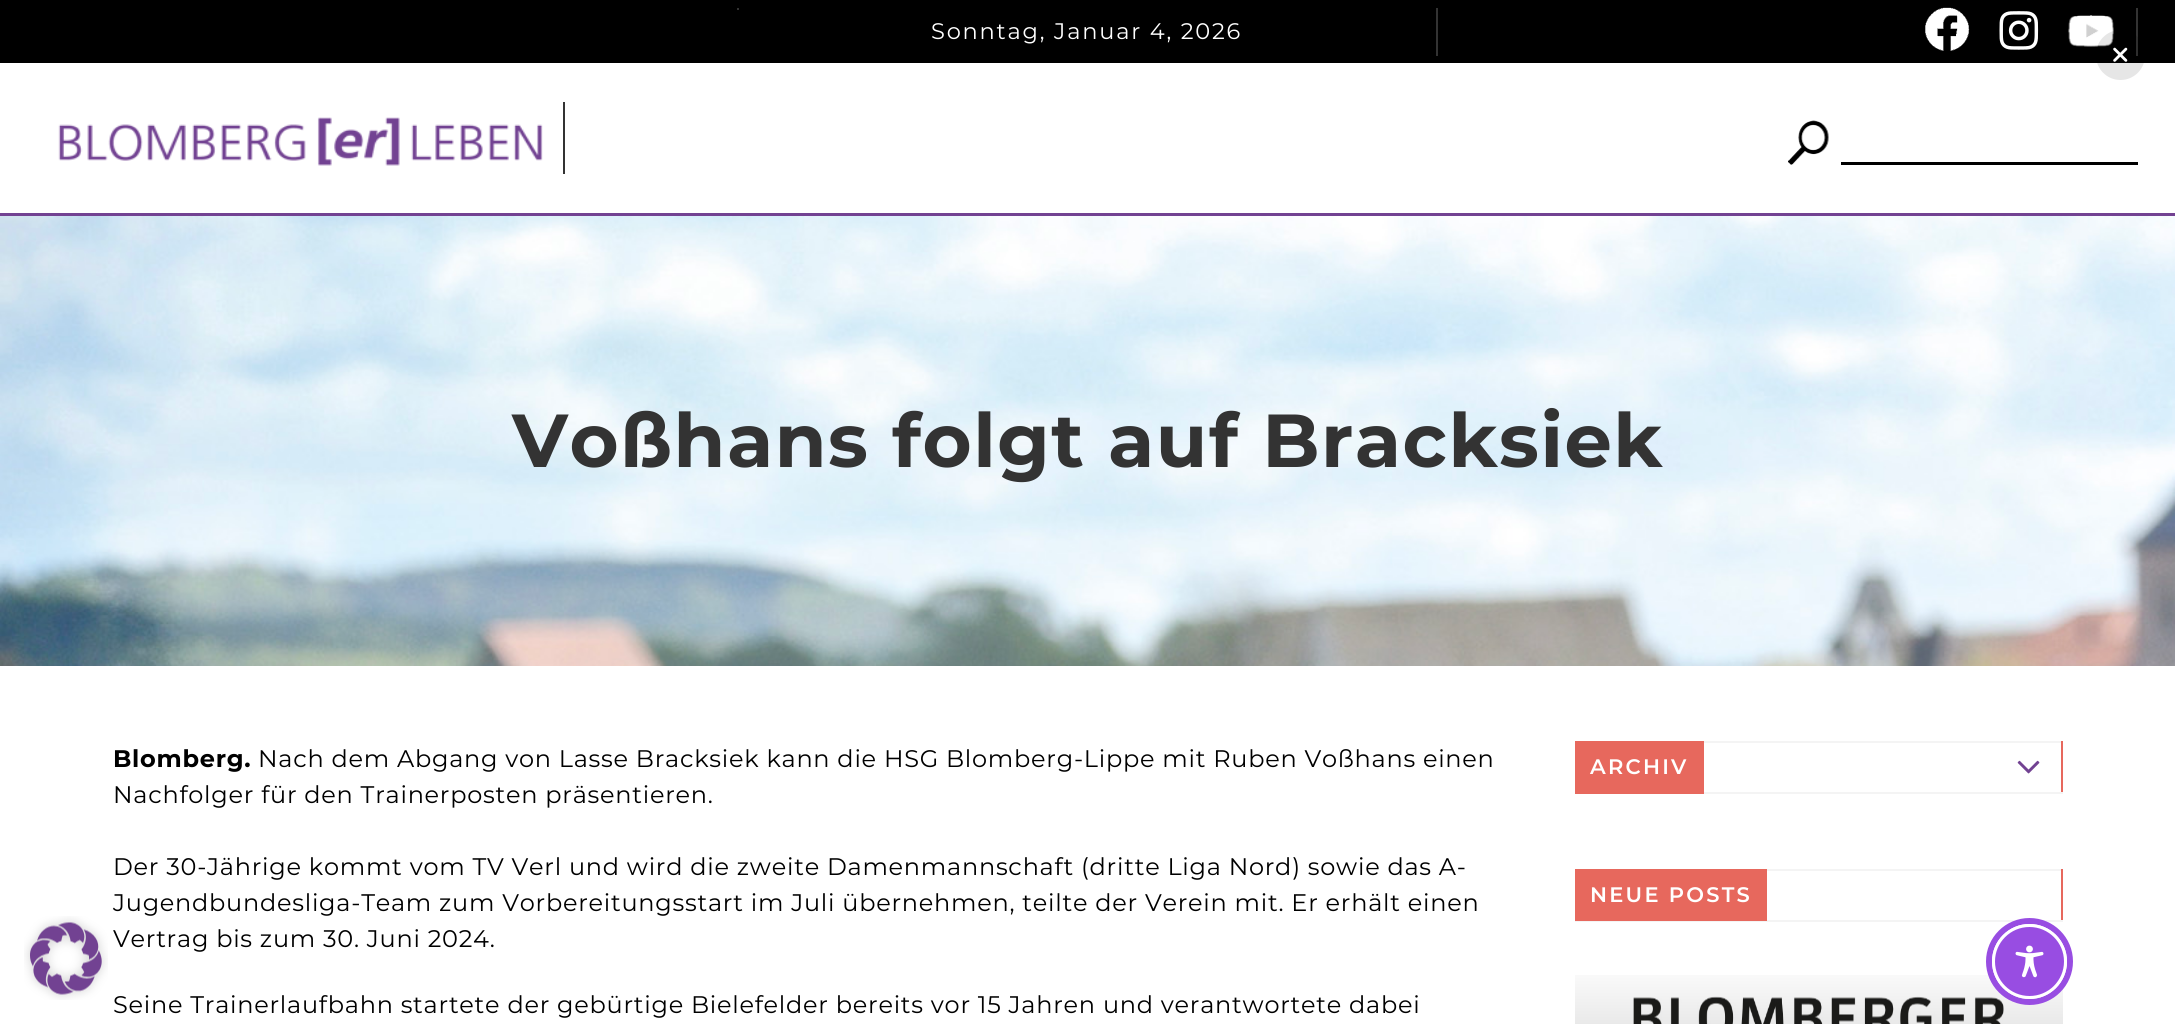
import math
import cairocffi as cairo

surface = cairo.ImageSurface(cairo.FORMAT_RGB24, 2175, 1024)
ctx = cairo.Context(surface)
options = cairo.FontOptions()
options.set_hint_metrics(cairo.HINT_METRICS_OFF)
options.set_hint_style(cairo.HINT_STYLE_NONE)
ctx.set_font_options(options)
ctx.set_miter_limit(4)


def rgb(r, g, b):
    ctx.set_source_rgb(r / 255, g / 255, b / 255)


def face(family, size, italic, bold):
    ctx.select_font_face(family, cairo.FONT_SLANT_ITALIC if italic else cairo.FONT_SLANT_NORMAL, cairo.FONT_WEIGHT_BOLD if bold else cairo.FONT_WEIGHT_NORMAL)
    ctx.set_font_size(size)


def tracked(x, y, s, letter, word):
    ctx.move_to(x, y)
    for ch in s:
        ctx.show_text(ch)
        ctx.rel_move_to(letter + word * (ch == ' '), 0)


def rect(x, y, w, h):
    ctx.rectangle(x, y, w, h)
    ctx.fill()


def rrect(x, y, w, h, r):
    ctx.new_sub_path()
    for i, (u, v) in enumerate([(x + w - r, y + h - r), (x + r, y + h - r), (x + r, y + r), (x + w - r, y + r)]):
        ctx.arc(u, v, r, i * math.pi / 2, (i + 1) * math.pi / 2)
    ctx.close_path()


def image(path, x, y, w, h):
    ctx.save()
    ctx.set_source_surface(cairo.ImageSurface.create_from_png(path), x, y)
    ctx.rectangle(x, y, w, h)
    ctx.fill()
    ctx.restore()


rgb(255, 255, 255)
ctx.paint()
rgb(0, 0, 0)
rect(0, 0, 2175, 63)
rgb(51, 51, 51)
rect(737, 8, 2, 2)
rect(2136, 8, 2, 48)
image('image0.png', 1925, 7, 45, 44)
image('image1.png', 1999, 11, 40, 39)
image('image2.png', 2068, 15, 46, 32)
rect(1436, 8, 2, 48)
face('Montserrat', 22.5, 0, 0)
rgb(255, 255, 255)
tracked(931, 39, 'Sonntag, Januar 4, 2026', 1.8, 0)
rgb(114, 66, 146)
rect(0, 213, 2175, 3)
image('image3.png', 58, 117, 485, 49)
rgb(51, 51, 51)
rect(563, 102, 2, 72)
image('image4.png', 1788, 120, 41, 45)
rgb(0, 0, 0)
rect(1841, 162, 297, 3)
image('image5.png', 0, 216, 2175, 450)
face('Montserrat', 75, 0, 1)
rgb(51, 51, 51)
tracked(512, 467, 'Voßhans folgt auf Bracksiek', 1.5, 0)
face('Montserrat', 24, 0, 1)
rgb(0, 0, 0)
tracked(113, 767, 'Blomberg.', 0.75, 0)
face('Montserrat', 24, 0, 0)
tracked(258, 767, 'Nach dem Abgang von Lasse Bracksiek kann die HSG Blomberg-Lippe mit Ruben Voßhans einen', 0.75, 0)
tracked(113, 803, 'Nachfolger für den Trainerposten präsentieren.', 0.75, 0)
tracked(113, 875, 'Der 30-Jährige kommt vom TV Verl und wird die zweite Damenmannschaft (dritte Liga Nord) sowie das A-', 0.75, 0)
tracked(113, 911, 'Jugendbundesliga-Team zum Vorbereitungsstart im Juli übernehmen, teilte der Verein mit. Er erhält einen', 0.75, 0)
tracked(113, 947, 'Vertrag bis zum 30. Juni 2024.', 0.75, 0)
tracked(113, 1013, 'Seine Trainerlaufbahn startete der gebürtige Bielefelder bereits vor 15 Jahren und verantwortete dabei', 0.75, 0)
rgb(244, 244, 244)
rect(1704, 741, 359, 2)
rgb(231, 104, 93)
rect(2061, 741, 2, 53)
rgb(244, 244, 244)
rect(1704, 792, 359, 2)
rgb(231, 104, 93)
rect(1575, 741, 129, 53)
face('Montserrat SemiBold', 21, 0, 0)
rgb(255, 255, 255)
tracked(1590, 774, 'ARCHIV', 2.25, 0)
image('image6.png', 2017, 760, 23, 14)
rgb(244, 244, 244)
rect(1767, 869, 296, 2)
rgb(231, 104, 93)
rect(2061, 869, 2, 52)
rgb(244, 244, 244)
rect(1575, 920, 488, 2)
rgb(231, 104, 93)
rect(1575, 869, 192, 52)
rgb(255, 255, 255)
tracked(1590, 902, 'NEUE POSTS', 2.25, 0)
image('image7.png', 1633, 996, 371, 28)
gradient = cairo.LinearGradient(1819, 959, 1819, 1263)
gradient.add_color_stop_rgba(0, 0, 0, 0, 0)
gradient.add_color_stop_rgba(1, 0, 0, 0, 0.4)
ctx.set_source(gradient)
rect(1575, 975, 488, 49)
ctx.set_source_rgba(0, 0, 0, 0.1)
rrect(2096, 30, 49, 50, 24.5)
ctx.fill()
image('image8.png', 2113, 47, 15, 15)
image('image9.png', 24, 916, 84, 84)
ctx.arc(2029.5, 961.5, 40.5, 0, 2 * math.pi)
rgb(152, 77, 226)
ctx.set_line_width(6)
ctx.stroke()
ctx.arc(2029.5, 961.5, 36, 0, 2 * math.pi)
ctx.fill_preserve()
rgb(255, 255, 255)
ctx.set_line_width(3)
ctx.stroke()
image('image10.png', 2015, 945, 29, 33)
surface.write_to_png('render.png')
